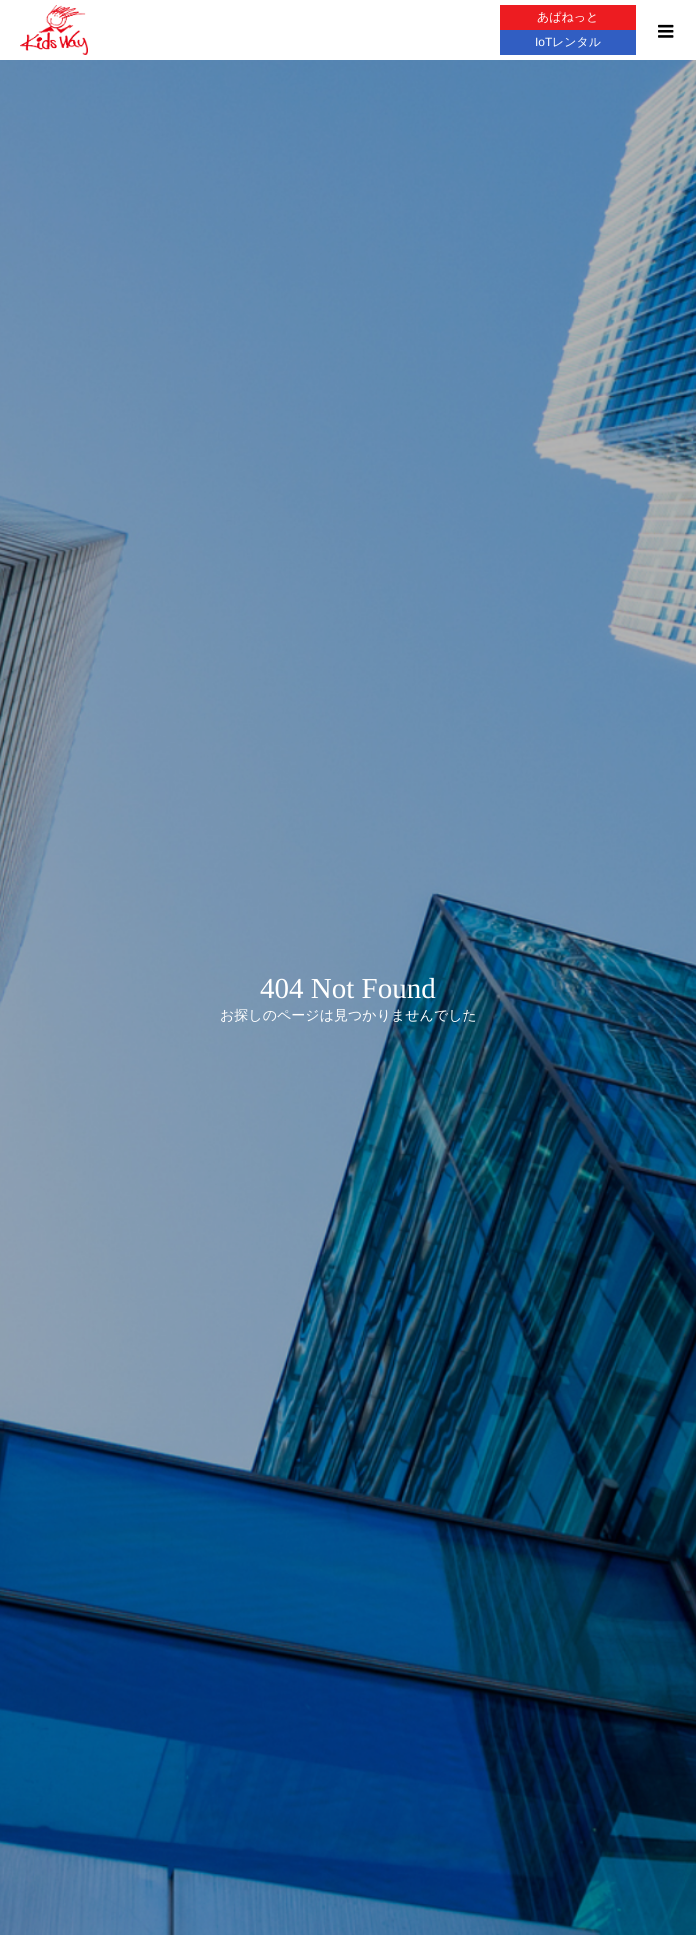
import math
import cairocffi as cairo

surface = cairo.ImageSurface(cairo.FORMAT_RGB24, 696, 1935)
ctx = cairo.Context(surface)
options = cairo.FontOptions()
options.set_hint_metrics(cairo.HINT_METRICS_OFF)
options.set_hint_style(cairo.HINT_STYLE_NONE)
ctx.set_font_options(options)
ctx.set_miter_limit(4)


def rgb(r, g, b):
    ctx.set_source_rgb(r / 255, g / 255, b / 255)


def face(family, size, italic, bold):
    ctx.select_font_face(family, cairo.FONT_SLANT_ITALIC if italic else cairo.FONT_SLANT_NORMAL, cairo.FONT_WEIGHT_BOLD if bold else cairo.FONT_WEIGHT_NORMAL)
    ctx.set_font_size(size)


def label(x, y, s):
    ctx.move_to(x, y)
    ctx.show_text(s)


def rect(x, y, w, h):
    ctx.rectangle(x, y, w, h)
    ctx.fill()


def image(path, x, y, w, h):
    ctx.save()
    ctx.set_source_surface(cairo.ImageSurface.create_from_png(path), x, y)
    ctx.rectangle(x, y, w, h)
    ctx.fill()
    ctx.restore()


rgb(255, 255, 255)
ctx.paint()
image('image0.png', 20, 5, 68, 50)
rgb(237, 28, 33)
rect(500, 5, 136, 25)
face('WenQuanYi Zen Hei Medium', 12, 0, 0)
rgb(255, 255, 255)
label(537, 21, 'あぱねっと')
rgb(49, 94, 194)
rect(500, 30, 136, 25)
face('Liberation Sans', 12, 0, 0)
rgb(255, 255, 255)
label(535, 46, 'IoT')
face('WenQuanYi Zen Hei Medium', 12, 0, 0)
label(552, 46, 'レンタル')
image('image1.png', 658, 24, 16, 14)
image('image2.png', 0, 60, 696, 1875)
face('Liberation Serif', 29, 0, 0)
label(260, 998, '404 Not Found')
face('WenQuanYi Zen Hei Medium', 14, 0, 0)
label(220, 1020, 'お探しのページは見つかりませんでした')
surface.write_to_png('render.png')
